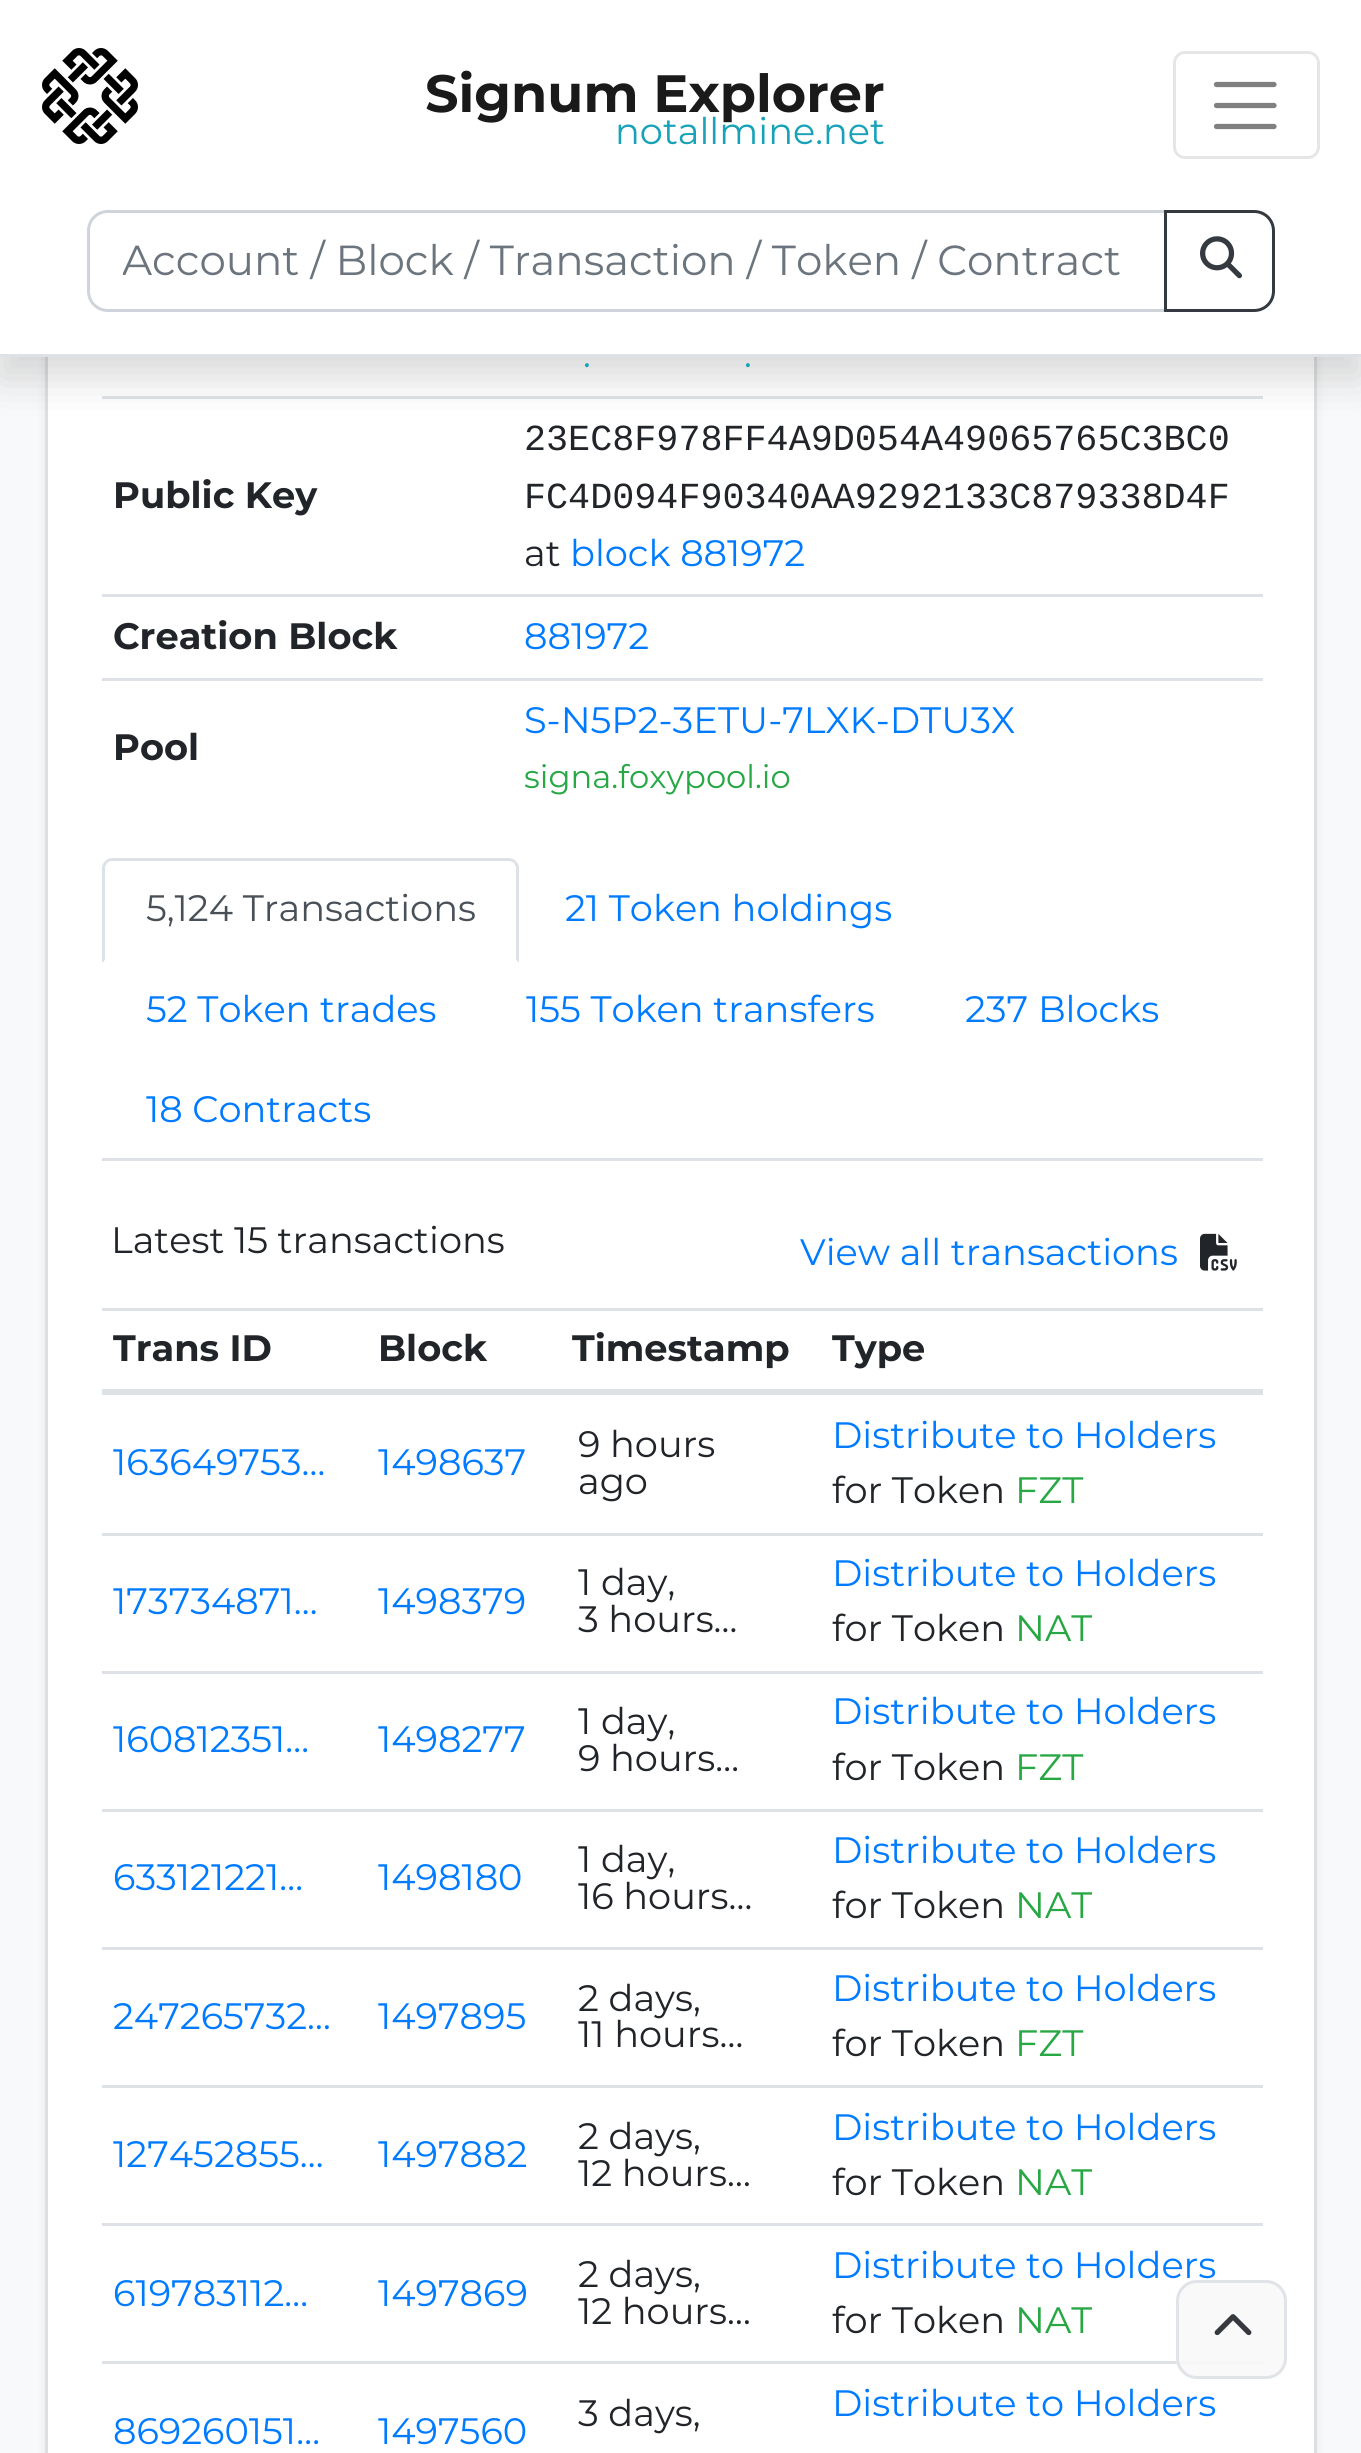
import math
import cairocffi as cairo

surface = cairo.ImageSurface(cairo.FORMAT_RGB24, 1361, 2453)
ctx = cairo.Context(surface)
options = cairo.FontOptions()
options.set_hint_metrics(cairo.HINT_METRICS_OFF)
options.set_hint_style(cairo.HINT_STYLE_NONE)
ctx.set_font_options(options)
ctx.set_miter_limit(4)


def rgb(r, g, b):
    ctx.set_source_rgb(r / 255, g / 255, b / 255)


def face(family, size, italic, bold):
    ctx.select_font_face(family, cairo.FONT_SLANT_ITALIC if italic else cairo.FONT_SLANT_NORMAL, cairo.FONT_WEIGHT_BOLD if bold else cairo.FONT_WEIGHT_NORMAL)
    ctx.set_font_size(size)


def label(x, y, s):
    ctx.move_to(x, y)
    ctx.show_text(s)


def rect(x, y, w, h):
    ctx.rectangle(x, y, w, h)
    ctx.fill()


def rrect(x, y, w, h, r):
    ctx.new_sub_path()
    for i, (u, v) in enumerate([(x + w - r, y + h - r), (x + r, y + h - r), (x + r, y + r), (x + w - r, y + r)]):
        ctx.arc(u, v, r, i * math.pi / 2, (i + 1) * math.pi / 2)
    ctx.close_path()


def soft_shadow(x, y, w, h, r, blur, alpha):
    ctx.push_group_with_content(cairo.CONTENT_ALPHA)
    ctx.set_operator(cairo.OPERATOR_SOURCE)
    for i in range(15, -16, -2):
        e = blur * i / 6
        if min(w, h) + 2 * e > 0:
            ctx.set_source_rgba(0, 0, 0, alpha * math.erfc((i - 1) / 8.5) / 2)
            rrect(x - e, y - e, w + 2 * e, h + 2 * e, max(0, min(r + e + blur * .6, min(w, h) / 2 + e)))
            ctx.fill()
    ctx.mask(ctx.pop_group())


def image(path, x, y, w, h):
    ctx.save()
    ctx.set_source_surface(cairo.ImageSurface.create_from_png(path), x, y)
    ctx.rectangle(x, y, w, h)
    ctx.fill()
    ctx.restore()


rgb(248, 249, 250)
ctx.paint()
rgb(0, 0, 0)
soft_shadow(45, -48, 1272, 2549, 33, 5, 0.07)
rgb(255, 255, 255)
rect(48, 357, 1266, 2096)
ctx.rectangle(46.5, -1.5, 1269, 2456)
rgb(223, 223, 223)
ctx.set_line_width(3)
ctx.stroke()
rgb(222, 226, 230)
rect(102, 396, 1161, 3)
rgb(0, 0, 0)
soft_shadow(0, 21, 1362, 357, 0, 21, 0.15)
rgb(255, 255, 255)
rect(0, 0, 1361, 354)
rgb(222, 226, 230)
rect(0, 354, 1361, 3)
image('image0.png', 42, 48, 96, 96)
face('Montserrat', 52.5, 0, 1)
rgb(26, 26, 26)
label(425, 112, 'Signum Explorer')
face('Montserrat', 36.75, 0, 0)
rgb(23, 162, 184)
label(615, 144, 'notallmine.net')
rrect(1174.5, 52.5, 144, 105, 10.5)
rgb(230, 230, 230)
ctx.stroke()
ctx.new_path()
ctx.move_to(1216.5, 84.5)
ctx.line_to(1274, 84.5)
ctx.move_to(1216.5, 105.5)
ctx.line_to(1274, 105.5)
ctx.move_to(1216.5, 126.5)
ctx.line_to(1274, 126.5)
rgb(128, 128, 128)
ctx.set_line_width(5.2)
ctx.set_line_cap(cairo.LINE_CAP_ROUND)
ctx.stroke()
ctx.new_path()
ctx.move_to(108, 211.5)
ctx.line_to(1165.5, 211.5)
ctx.line_to(1165.5, 310.5)
ctx.line_to(108, 310.5)
ctx.curve_to(97, 310.5, 88.5, 302, 88.5, 291)
ctx.line_to(88.5, 231)
ctx.curve_to(88.5, 220, 97, 211.5, 108, 211.5)
ctx.close_path()
rgb(206, 212, 218)
ctx.set_line_width(3)
ctx.set_line_cap(cairo.LINE_CAP_BUTT)
ctx.stroke()
ctx.save()
ctx.rectangle(123, 234, 1011, 54)
ctx.clip()
face('Montserrat', 42, 0, 0)
rgb(108, 117, 125)
label(122, 275, 'Account / Block / Transaction / Token / Contract')
ctx.restore()
ctx.new_path()
ctx.move_to(1165.5, 211.5)
ctx.line_to(1254, 211.5)
ctx.curve_to(1265, 211.5, 1273.5, 220, 1273.5, 231)
ctx.line_to(1273.5, 291)
ctx.curve_to(1273.5, 302, 1265, 310.5, 1254, 310.5)
ctx.line_to(1165.5, 310.5)
ctx.close_path()
rgb(52, 58, 64)
ctx.stroke()
image('image1.png', 1200, 236, 42, 43)
rgb(23, 162, 184)
label(583, 367, '.')
label(744, 367, '.')
face('Montserrat', 36.75, 0, 1)
rgb(33, 37, 41)
label(113, 508, 'Public Key')
face('Liberation Mono', 36.75, 0, 0)
label(524, 450, '23EC8F978FF4A9D054A49065765C3BC0')
label(524, 508, 'FC4D094F90340AA9292133C879338D4F')
face('Montserrat', 36.75, 0, 0)
label(524, 566, 'at')
rgb(0, 123, 255)
label(570, 566, 'block 881972')
face('Montserrat', 36.75, 0, 1)
rgb(33, 37, 41)
label(113, 649, 'Creation Block')
rgb(222, 226, 230)
rect(102, 594, 1161, 3)
face('Montserrat', 36.75, 0, 0)
rgb(0, 123, 255)
label(524, 649, '881972')
face('Montserrat', 36.75, 0, 1)
rgb(33, 37, 41)
label(113, 760, 'Pool')
rgb(222, 226, 230)
rect(102, 678, 1161, 3)
face('Montserrat', 36.75, 0, 0)
rgb(0, 123, 255)
label(524, 733, 'S-N5P2-3ETU-7LXK-DTU3X')
face('Montserrat', 32.25, 0, 0)
rgb(40, 167, 69)
label(524, 788, 'signa.foxypool.io')
rgb(222, 226, 230)
rect(102, 1158, 1161, 3)
ctx.new_path()
ctx.move_to(112, 858)
ctx.curve_to(110, 858, 107, 859, 105, 861)
ctx.line_to(107, 863)
ctx.curve_to(108, 862, 110, 861, 112, 861)
ctx.line_to(508, 861)
ctx.curve_to(511, 861, 513, 862, 514, 863)
ctx.line_to(516, 861)
ctx.curve_to(514, 859, 511, 858, 508, 858)
ctx.close_path()
ctx.fill()
ctx.new_path()
ctx.move_to(519, 963)
ctx.line_to(519, 868)
ctx.curve_to(519, 866, 518, 863, 516, 861)
ctx.line_to(514, 863)
ctx.line_to(516, 867)
ctx.line_to(516, 960)
ctx.close_path()
ctx.fill()
rgb(255, 255, 255)
ctx.new_path()
ctx.move_to(519, 963)
ctx.line_to(516, 960)
ctx.line_to(105, 960)
ctx.line_to(102, 963)
ctx.close_path()
ctx.fill()
rgb(222, 226, 230)
ctx.new_path()
ctx.move_to(102, 963)
ctx.line_to(105, 960)
ctx.line_to(105, 867)
ctx.line_to(107, 863)
ctx.line_to(105, 861)
ctx.curve_to(103, 863, 102, 866, 102, 868)
ctx.close_path()
ctx.fill()
face('Montserrat', 36.75, 0, 0)
rgb(73, 80, 87)
label(146, 921, '5,124 Transactions')
rgb(0, 123, 255)
label(565, 921, '21 Token holdings')
label(146, 1022, '52 Token trades')
label(526, 1022, '155 Token transfers')
label(965, 1022, '237 Blocks')
label(146, 1122, '18 Contracts')
rgb(33, 37, 41)
label(111, 1253, 'Latest 15 transactions')
rgb(0, 123, 255)
label(800, 1265, 'View all transactions')
image('image2.png', 1200, 1233, 37, 38)
rgb(222, 226, 230)
rect(102, 1308, 1161, 3)
rect(102, 1389, 1161, 6)
face('Montserrat', 36.75, 0, 1)
rgb(33, 37, 41)
label(113, 1361, 'Trans ID')
label(378, 1361, 'Block')
label(572, 1361, 'Timestamp')
label(832, 1361, 'Type')
face('Montserrat', 36.75, 0, 0)
rgb(0, 123, 255)
label(113, 1475, '163649753…')
label(378, 1475, '1498637')
rgb(33, 37, 41)
label(578, 1457, '9 hours')
label(578, 1494, 'ago')
rgb(0, 123, 255)
label(832, 1448, 'Distribute to Holders')
rgb(33, 37, 41)
label(832, 1503, 'for Token')
rgb(40, 167, 69)
label(1015, 1503, 'FZT')
rgb(222, 226, 230)
rect(102, 1533, 1161, 3)
rgb(0, 123, 255)
label(113, 1614, '173734871…')
label(378, 1614, '1498379')
rgb(33, 37, 41)
label(578, 1595, '1 day,')
label(578, 1632, '3 hours…')
rgb(0, 123, 255)
label(832, 1586, 'Distribute to Holders')
rgb(33, 37, 41)
label(832, 1641, 'for Token')
rgb(40, 167, 69)
label(1015, 1641, 'NAT')
rgb(222, 226, 230)
rect(102, 1671, 1161, 3)
rgb(0, 123, 255)
label(113, 1752, '160812351…')
label(378, 1752, '1498277')
rgb(33, 37, 41)
label(578, 1734, '1 day,')
label(578, 1771, '9 hours…')
rgb(0, 123, 255)
label(832, 1724, 'Distribute to Holders')
rgb(33, 37, 41)
label(832, 1780, 'for Token')
rgb(40, 167, 69)
label(1015, 1780, 'FZT')
rgb(222, 226, 230)
rect(102, 1809, 1161, 3)
rgb(0, 123, 255)
label(113, 1890, '633121221…')
label(378, 1890, '1498180')
rgb(33, 37, 41)
label(578, 1872, '1 day,')
label(578, 1909, '16 hours…')
rgb(0, 123, 255)
label(832, 1863, 'Distribute to Holders')
rgb(33, 37, 41)
label(832, 1918, 'for Token')
rgb(40, 167, 69)
label(1015, 1918, 'NAT')
rgb(222, 226, 230)
rect(102, 1947, 1161, 3)
rgb(0, 123, 255)
label(113, 2029, '247265732…')
label(378, 2029, '1497895')
rgb(33, 37, 41)
label(578, 2011, '2 days,')
label(578, 2047, '11 hours…')
rgb(0, 123, 255)
label(832, 2001, 'Distribute to Holders')
rgb(33, 37, 41)
label(832, 2056, 'for Token')
rgb(40, 167, 69)
label(1015, 2056, 'FZT')
rgb(222, 226, 230)
rect(102, 2085, 1161, 3)
rgb(0, 123, 255)
label(113, 2167, '127452855…')
label(378, 2167, '1497882')
rgb(33, 37, 41)
label(578, 2149, '2 days,')
label(578, 2186, '12 hours…')
rgb(0, 123, 255)
label(832, 2140, 'Distribute to Holders')
rgb(33, 37, 41)
label(832, 2195, 'for Token')
rgb(40, 167, 69)
label(1015, 2195, 'NAT')
rgb(222, 226, 230)
rect(102, 2223, 1161, 3)
rgb(0, 123, 255)
label(113, 2306, '619783112…')
label(378, 2306, '1497869')
rgb(33, 37, 41)
label(578, 2287, '2 days,')
label(578, 2324, '12 hours…')
rgb(0, 123, 255)
label(832, 2278, 'Distribute to Holders')
rgb(33, 37, 41)
label(832, 2333, 'for Token')
rgb(40, 167, 69)
label(1015, 2333, 'NAT')
rgb(222, 226, 230)
rect(102, 2361, 1161, 3)
rgb(0, 123, 255)
label(113, 2444, '869260151…')
label(378, 2444, '1497560')
rgb(33, 37, 41)
label(578, 2426, '3 days,')
rgb(0, 123, 255)
label(832, 2416, 'Distribute to Holders')
ctx.set_source_rgba(0.973, 0.976, 0.98, 0.9)
rrect(1176, 2280, 111, 99, 21)
ctx.fill()
rrect(1177.5, 2281.5, 108, 96, 19.5)
ctx.set_source_rgba(0.871, 0.886, 0.902, 0.9)
ctx.stroke()
image('image3.png', 1214, 2314, 38, 22)
surface.write_to_png('render.png')
